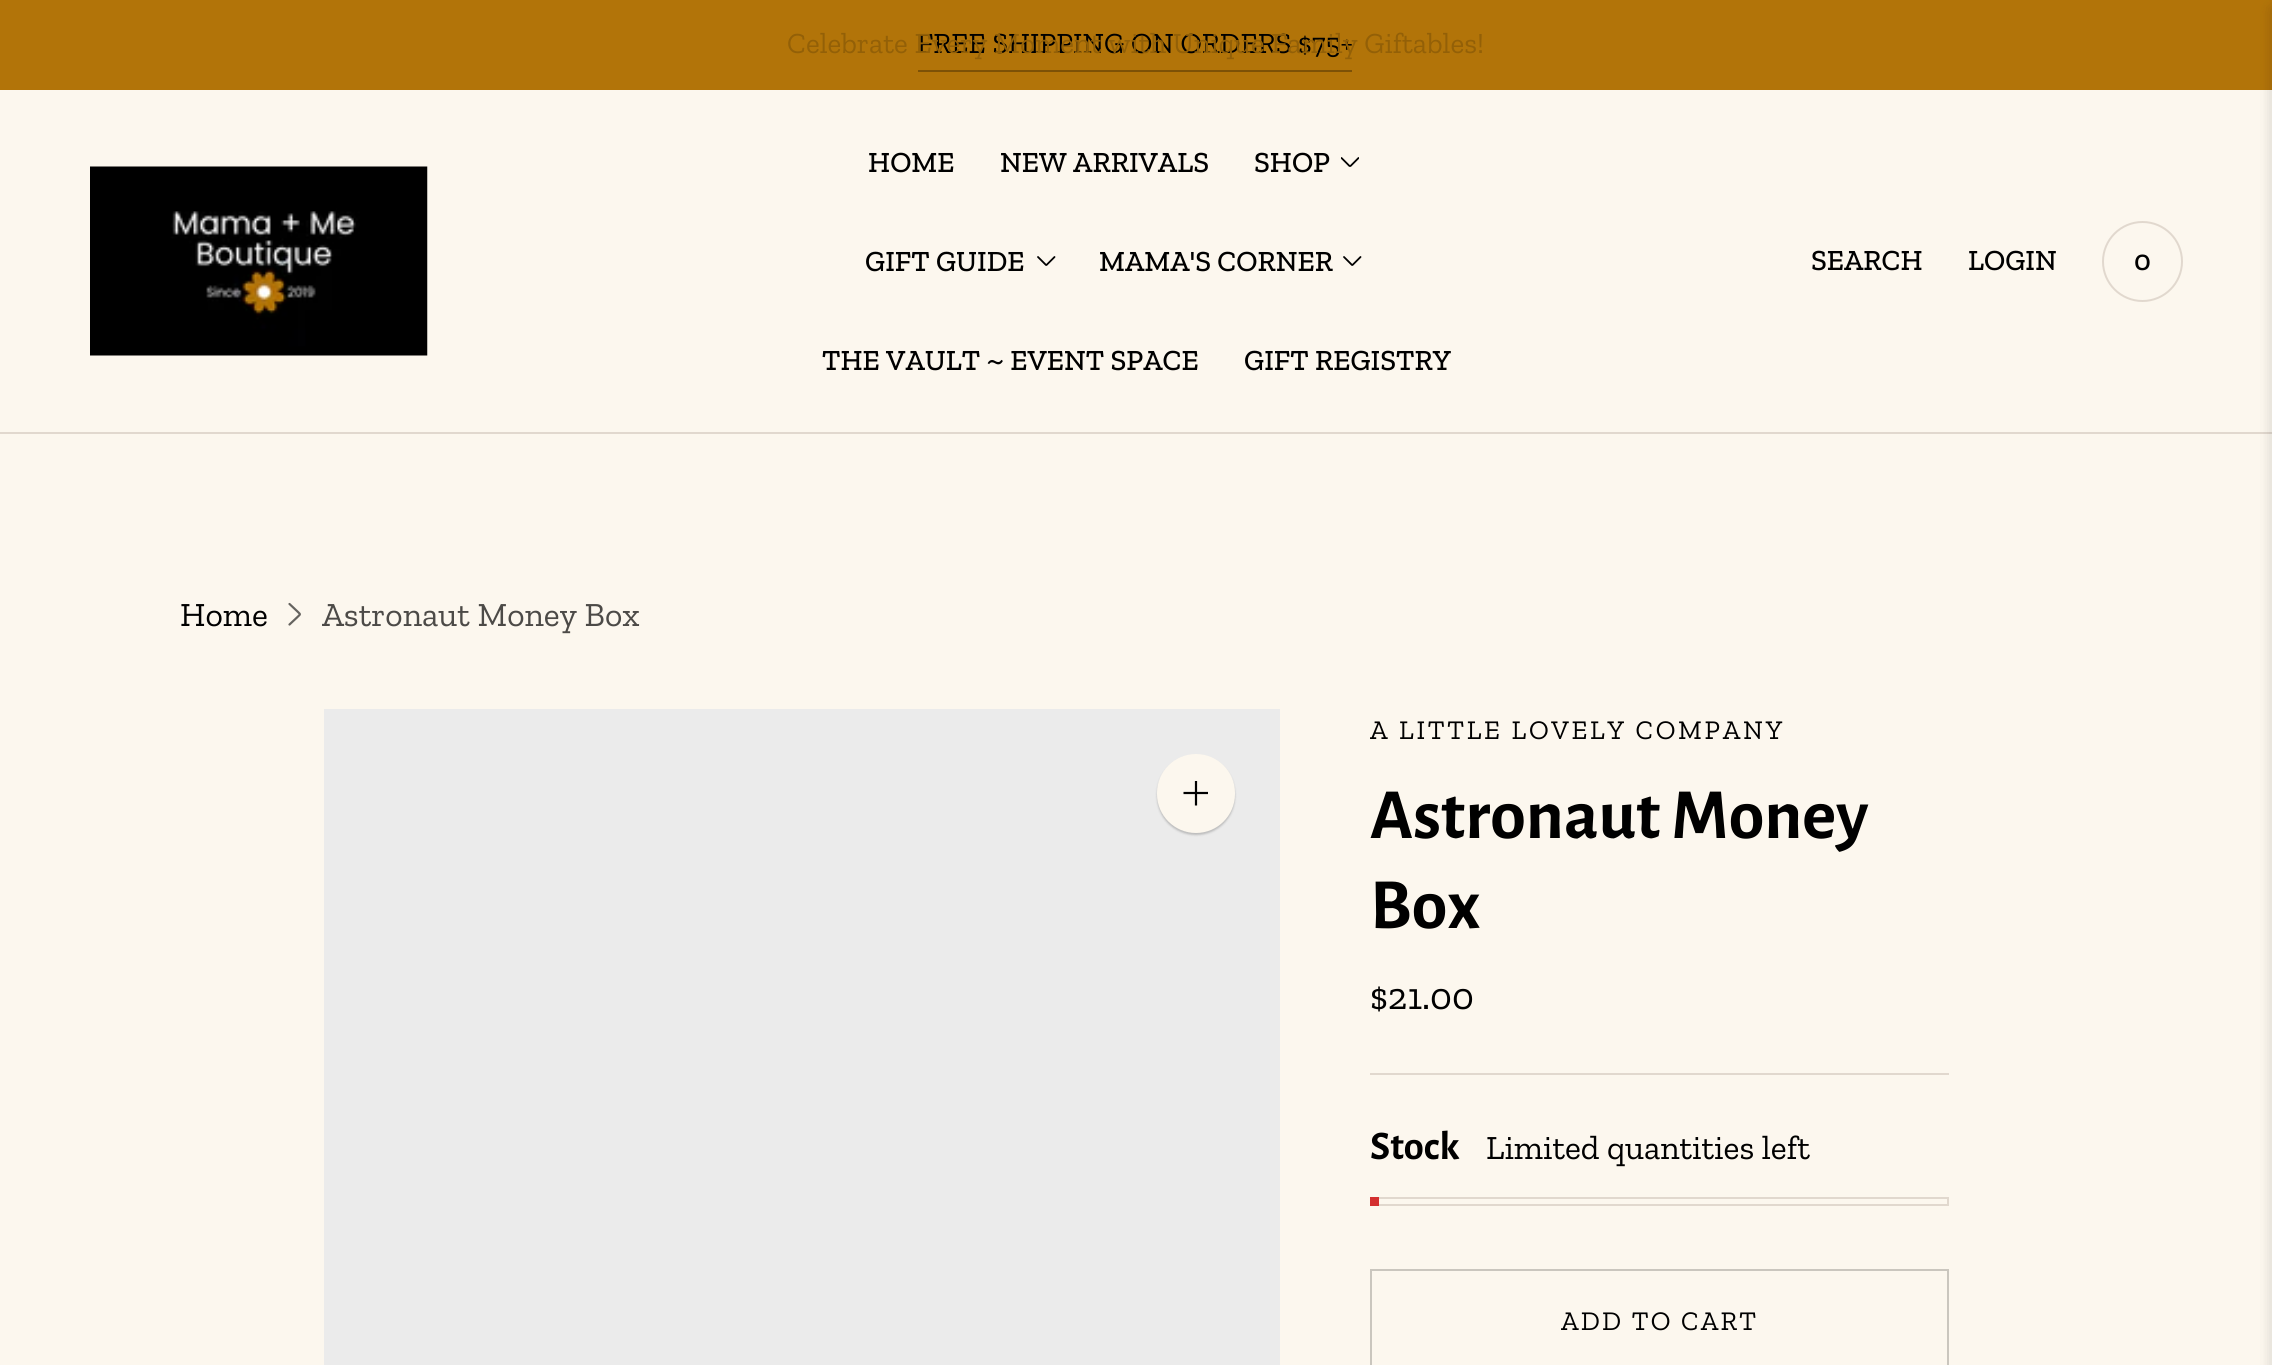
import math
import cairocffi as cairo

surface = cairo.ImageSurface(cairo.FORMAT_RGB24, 2272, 1365)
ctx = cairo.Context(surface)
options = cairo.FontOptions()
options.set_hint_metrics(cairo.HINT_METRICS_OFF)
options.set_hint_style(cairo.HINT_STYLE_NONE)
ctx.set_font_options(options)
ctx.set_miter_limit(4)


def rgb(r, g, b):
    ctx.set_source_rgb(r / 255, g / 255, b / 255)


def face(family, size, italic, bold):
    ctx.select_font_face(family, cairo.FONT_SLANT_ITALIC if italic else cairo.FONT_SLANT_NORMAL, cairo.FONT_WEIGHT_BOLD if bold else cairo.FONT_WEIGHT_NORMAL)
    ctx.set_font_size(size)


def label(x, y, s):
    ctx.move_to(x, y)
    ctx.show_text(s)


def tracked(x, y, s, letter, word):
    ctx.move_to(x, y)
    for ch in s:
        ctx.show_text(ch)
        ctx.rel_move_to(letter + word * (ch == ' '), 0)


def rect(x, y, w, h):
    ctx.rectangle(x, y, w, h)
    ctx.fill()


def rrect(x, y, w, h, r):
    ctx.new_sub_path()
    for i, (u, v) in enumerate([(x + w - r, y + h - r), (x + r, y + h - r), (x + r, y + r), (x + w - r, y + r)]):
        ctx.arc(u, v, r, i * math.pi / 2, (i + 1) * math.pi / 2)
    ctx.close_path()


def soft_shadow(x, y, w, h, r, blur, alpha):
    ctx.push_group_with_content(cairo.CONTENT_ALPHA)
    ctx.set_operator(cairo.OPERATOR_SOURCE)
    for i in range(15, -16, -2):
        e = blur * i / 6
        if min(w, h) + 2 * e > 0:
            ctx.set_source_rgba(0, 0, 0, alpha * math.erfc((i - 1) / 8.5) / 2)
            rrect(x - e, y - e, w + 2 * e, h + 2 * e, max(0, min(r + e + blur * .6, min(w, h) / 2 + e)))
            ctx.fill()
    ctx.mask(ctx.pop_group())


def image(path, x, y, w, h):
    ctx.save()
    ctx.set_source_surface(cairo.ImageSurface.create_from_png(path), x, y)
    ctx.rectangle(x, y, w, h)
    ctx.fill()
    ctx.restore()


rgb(252, 247, 238)
ctx.paint()
rgb(178, 116, 9)
rect(0, 0, 2272, 90)
face('Zilla Slab', 29.25, 0, 0)
rgb(0, 0, 0)
label(917, 53, 'FREE SHIPPING ON ORDERS $75+')
rgb(147, 96, 7)
label(787, 53, 'Celebrate Every Moment with Unique Family Giftables!')
rgb(125, 81, 6)
rect(918, 70, 434, 2)
rgb(225, 216, 206)
rect(0, 432, 2272, 2)
image('image0.png', 90, 166, 338, 190)
face('Zilla Slab Medium', 29.25, 0, 0)
rgb(0, 0, 0)
label(868, 172, 'HOME')
label(1000, 172, 'NEW ARRIVALS')
label(1254, 172, 'SHOP')
ctx.save()
ctx.rectangle(1341, 153, 18, 18)
ctx.clip()
ctx.new_path()
ctx.move_to(1341.5, 158)
ctx.line_to(1349.5, 166)
ctx.curve_to(1350, 166, 1350, 166, 1350.5, 166)
ctx.line_to(1358.5, 158)
ctx.set_line_width(1.8)
ctx.set_line_cap(cairo.LINE_CAP_ROUND)
ctx.set_line_join(cairo.LINE_JOIN_ROUND)
ctx.stroke()
ctx.restore()
label(865, 271, 'GIFT GUIDE')
ctx.new_path()
ctx.move_to(1038, 257)
ctx.line_to(1046, 265)
ctx.curve_to(1046, 265, 1046.5, 265, 1046.5, 265)
ctx.line_to(1054.5, 257)
ctx.set_line_width(1.8)
ctx.set_line_cap(cairo.LINE_CAP_ROUND)
ctx.set_line_join(cairo.LINE_JOIN_ROUND)
ctx.stroke()
label(1099, 271, 'MAMA\'S CORNER')
ctx.new_path()
ctx.move_to(1344, 257)
ctx.line_to(1352, 265)
ctx.curve_to(1352, 265, 1352.5, 265, 1352.5, 265)
ctx.line_to(1360.5, 257)
ctx.stroke()
label(822, 370, 'THE VAULT ~ EVENT SPACE')
label(1244, 370, 'GIFT REGISTRY')
label(1811, 270, 'SEARCH')
label(1968, 270, 'LOGIN')
ctx.new_path()
ctx.arc(2142.5, 261.5, 39.5, 0, 2 * math.pi)
rgb(225, 216, 206)
ctx.set_line_width(2)
ctx.set_line_cap(cairo.LINE_CAP_BUTT)
ctx.set_line_join(cairo.LINE_JOIN_MITER)
ctx.stroke()
rgb(0, 0, 0)
label(2134, 270, '0')
rgb(0, 0, 0)
soft_shadow(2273, 9, 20, 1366, 0, 7, 0.1)
face('Zilla Slab', 33.75, 0, 0)
rgb(0, 0, 0)
label(180, 626, 'Home')
ctx.new_path()
ctx.move_to(289.5, 604)
ctx.line_to(298, 612)
ctx.curve_to(300.5, 614.5, 300.5, 614, 298, 616.5)
ctx.line_to(289.5, 624.5)
rgb(101, 99, 95)
ctx.set_line_width(2.2)
ctx.set_line_cap(cairo.LINE_CAP_ROUND)
ctx.set_line_join(cairo.LINE_JOIN_ROUND)
ctx.stroke()
rgb(76, 74, 71)
label(322, 626, 'Astronaut Money Box')
rgb(235, 235, 235)
rect(324, 709, 956, 656)
rgb(0, 0, 0)
soft_shadow(1157, 756, 78, 79, 39, 1, 0.2)
rgb(252, 247, 238)
rrect(1157, 754, 78, 79, 39)
ctx.fill()
ctx.new_path()
ctx.move_to(1196, 781)
ctx.line_to(1196, 805.5)
ctx.move_to(1183.5, 793)
ctx.line_to(1208, 793)
rgb(0, 0, 0)
ctx.set_line_cap(cairo.LINE_CAP_BUTT)
ctx.set_line_join(cairo.LINE_JOIN_MITER)
ctx.stroke()
face('Zilla Slab', 27, 0, 0)
tracked(1370, 739, 'A LITTLE LOVELY COMPANY', 2.7, 0)
face('Alegreya Sans', 72, 0, 1)
label(1370, 838, 'Astronaut Money')
label(1370, 928, 'Box')
face('Zilla Slab', 38, 0, 0)
label(1370, 1009, '$21.00')
rgb(225, 216, 206)
rect(1370, 1073, 579, 2)
face('Alegreya Sans', 40.5, 0, 1)
rgb(0, 0, 0)
label(1370, 1159, 'Stock')
face('Zilla Slab', 33.75, 0, 0)
label(1486, 1159, 'Limited quantities left')
ctx.rectangle(1371, 1198, 577, 7)
rgb(225, 216, 206)
ctx.set_line_width(2)
ctx.stroke()
rgb(211, 47, 47)
rect(1370, 1197, 9, 9)
ctx.rectangle(1371, 1270, 577, 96)
rgb(202, 198, 190)
ctx.stroke()
face('Zilla Slab', 27, 0, 0)
rgb(0, 0, 0)
tracked(1561, 1330, 'ADD TO CART', 2.25, 0)
rgb(0, 0, 0)
soft_shadow(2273, 9, 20, 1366, 0, 7, 0.1)
surface.write_to_png('render.png')
